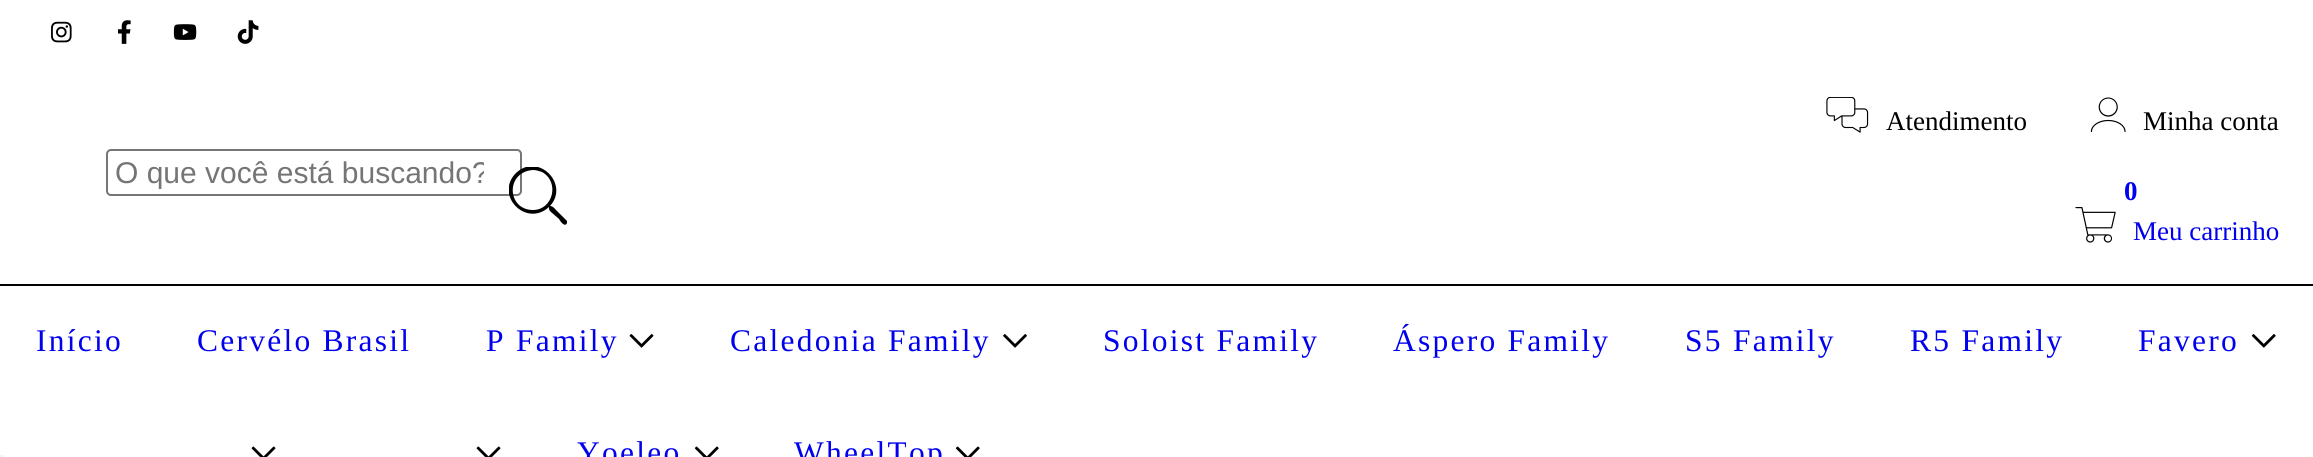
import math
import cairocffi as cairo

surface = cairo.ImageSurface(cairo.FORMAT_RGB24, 2313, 457)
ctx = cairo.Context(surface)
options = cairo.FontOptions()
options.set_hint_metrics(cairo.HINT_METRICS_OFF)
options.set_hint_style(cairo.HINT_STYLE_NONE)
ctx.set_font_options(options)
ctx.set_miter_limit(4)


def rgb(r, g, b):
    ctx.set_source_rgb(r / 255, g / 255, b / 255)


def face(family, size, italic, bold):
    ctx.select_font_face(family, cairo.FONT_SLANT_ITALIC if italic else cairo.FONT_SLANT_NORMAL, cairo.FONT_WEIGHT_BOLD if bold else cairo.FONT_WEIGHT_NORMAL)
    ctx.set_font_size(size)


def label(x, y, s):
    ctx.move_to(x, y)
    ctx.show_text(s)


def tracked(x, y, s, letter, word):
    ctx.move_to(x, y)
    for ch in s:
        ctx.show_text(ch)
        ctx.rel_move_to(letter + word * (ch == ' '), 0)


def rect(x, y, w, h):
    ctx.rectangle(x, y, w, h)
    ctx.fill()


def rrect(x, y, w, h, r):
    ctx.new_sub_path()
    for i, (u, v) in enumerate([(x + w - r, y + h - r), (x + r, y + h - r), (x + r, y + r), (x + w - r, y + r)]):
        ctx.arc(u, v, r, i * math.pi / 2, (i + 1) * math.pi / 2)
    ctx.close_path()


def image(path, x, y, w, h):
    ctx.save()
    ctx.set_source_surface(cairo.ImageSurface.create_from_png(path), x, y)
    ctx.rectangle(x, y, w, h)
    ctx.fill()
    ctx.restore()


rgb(255, 255, 255)
ctx.paint()
rgb(245, 245, 245)
rect(0, 455, 5, 2)
image('image0.png', 51, 21, 21, 22)
image('image1.png', 118, 20, 13, 24)
image('image2.png', 173, 24, 24, 16)
image('image3.png', 237, 20, 22, 24)
rrect(107, 150, 414, 45, 4)
rgb(118, 118, 118)
ctx.stroke()
ctx.save()
ctx.rectangle(115, 155, 369, 34)
ctx.clip()
face('Liberation Sans', 30, 0, 0)
rgb(117, 117, 117)
label(115, 183, 'O que você está buscando?')
ctx.restore()
ctx.save()
ctx.rectangle(509, 167, 59, 59)
ctx.clip()
rgb(0, 0, 0)
ctx.new_path()
ctx.move_to(567, 221)
ctx.line_to(557, 211)
ctx.curve_to(555, 209, 553, 206, 550, 206)
ctx.curve_to(570, 184, 538, 152, 516, 173)
ctx.curve_to(494, 195, 526, 228, 549, 207)
ctx.curve_to(549, 210, 549, 210, 551, 212)
ctx.line_to(559, 219)
ctx.curve_to(560, 221, 565, 228, 567, 223)
ctx.close_path()
ctx.move_to(533, 210)
ctx.curve_to(507, 210, 505, 172, 533, 170)
ctx.curve_to(536, 170, 539, 171, 542, 172)
ctx.curve_to(560, 182, 553, 210, 533, 210)
ctx.close_path()
ctx.fill()
ctx.restore()
image('image4.png', 1826, 97, 43, 36)
face('Liberation Serif', 27, 0, 0)
rgb(0, 0, 0)
label(1886, 130, 'Atendimento')
image('image5.png', 2090, 97, 36, 36)
label(2143, 130, 'Minha conta')
face('Liberation Serif', 27, 0, 1)
rgb(0, 0, 238)
label(2124, 200, '0')
image('image6.png', 2075, 207, 41, 36)
face('Liberation Serif', 27, 0, 0)
label(2133, 240, 'Meu carrinho')
rgb(0, 0, 0)
rect(0, 284, 2313, 2)
face('Liberation Serif', 31.5, 0, 0)
rgb(0, 0, 238)
tracked(36, 351, 'Início', 2.25, 0)
tracked(197, 351, 'Cervélo Brasil', 2.25, 0)
tracked(486, 351, 'P Family', 2.25, 0)
image('image7.png', 629, 334, 25, 14)
tracked(730, 351, 'Caledonia Family', 2.25, 0)
image('image8.png', 1003, 334, 24, 14)
tracked(1103, 351, 'Soloist Family', 2.25, 0)
tracked(1393, 351, 'Áspero Family', 2.25, 0)
tracked(1685, 351, 'S5 Family', 2.25, 0)
tracked(1910, 351, 'R5 Family', 2.25, 0)
tracked(2138, 351, 'Favero', 2.25, 0)
image('image9.png', 2251, 334, 25, 14)
image('image10.png', 251, 446, 25, 11)
image('image10.png', 476, 446, 25, 11)
tracked(577, 463, 'Yoeleo', 2.25, 0)
image('image11.png', 694, 446, 25, 11)
tracked(794, 463, 'WheelTop', 2.25, 0)
image('image11.png', 955, 446, 25, 11)
surface.write_to_png('render.png')
